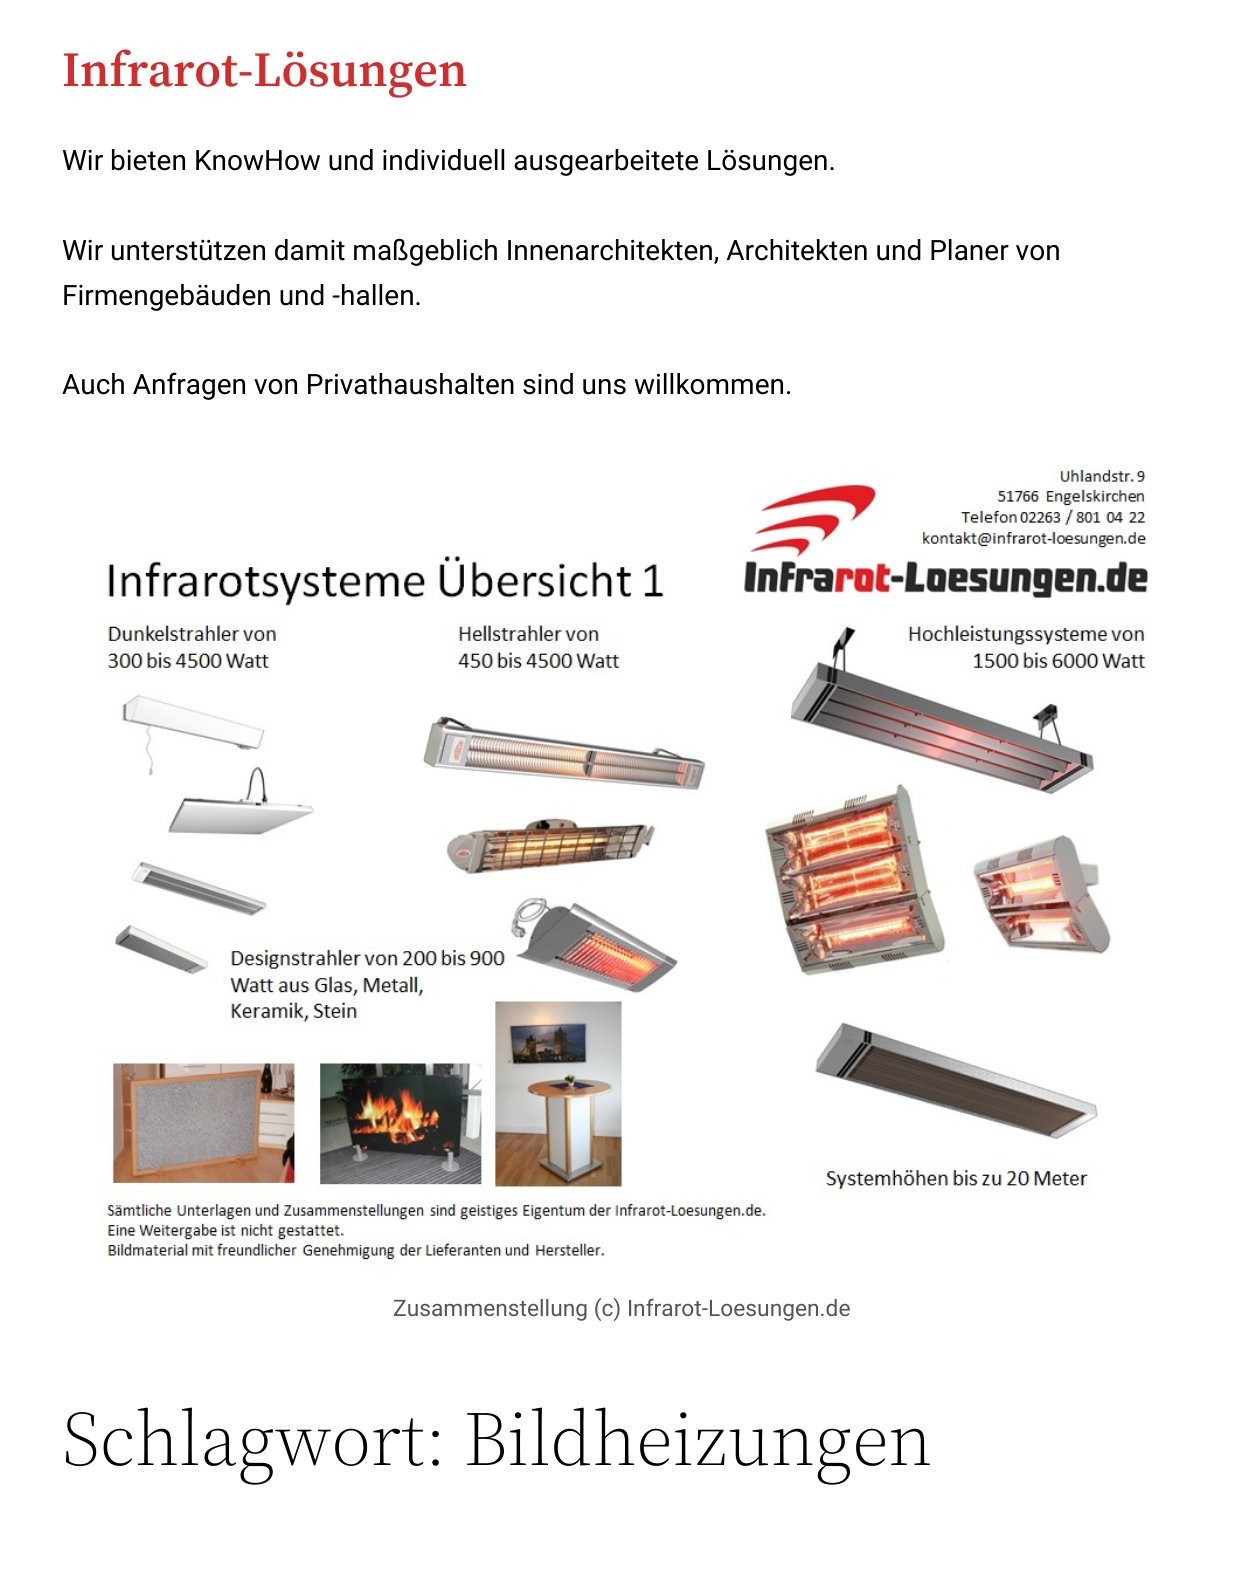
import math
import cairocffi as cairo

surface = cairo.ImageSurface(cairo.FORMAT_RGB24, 1244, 1575)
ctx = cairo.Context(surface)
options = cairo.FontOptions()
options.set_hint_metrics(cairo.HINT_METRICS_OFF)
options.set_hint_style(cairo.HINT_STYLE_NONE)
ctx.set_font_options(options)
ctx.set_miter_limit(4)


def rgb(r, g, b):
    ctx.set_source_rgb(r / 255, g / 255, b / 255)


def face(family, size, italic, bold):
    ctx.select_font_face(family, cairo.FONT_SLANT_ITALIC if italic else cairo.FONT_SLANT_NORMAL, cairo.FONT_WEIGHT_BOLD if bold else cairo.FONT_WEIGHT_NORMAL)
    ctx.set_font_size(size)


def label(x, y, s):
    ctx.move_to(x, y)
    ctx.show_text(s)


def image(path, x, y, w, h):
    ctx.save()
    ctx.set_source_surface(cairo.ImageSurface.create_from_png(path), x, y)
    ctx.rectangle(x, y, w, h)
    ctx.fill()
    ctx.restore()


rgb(255, 255, 255)
ctx.paint()
face('Source Serif 4 SemiBold', 49, 0, 0)
rgb(207, 46, 46)
label(62, 86, 'Infrarot-Lösungen')
face('Roboto', 28, 0, 0)
rgb(0, 0, 0)
label(62, 170, 'Wir bieten KnowHow und individuell ausgearbeitete Lösungen.')
label(62, 260, 'Wir unterstützen damit maßgeblich Innenarchitekten, Architekten und Planer von')
label(62, 305, 'Firmengebäuden und -hallen.')
label(62, 394, 'Auch Anfragen von Privathaushalten sind uns willkommen.')
image('image0.png', 100, 468, 1048, 806)
face('Roboto', 22.75, 0, 0)
rgb(85, 85, 85)
label(393, 1316, 'Zusammenstellung (c) Infrarot-Loesungen.de')
face('Source Serif 4 Light', 77, 0, 0)
rgb(0, 0, 0)
label(62, 1465, 'Schlagwort: Bildheizungen')
surface.write_to_png('render.png')
